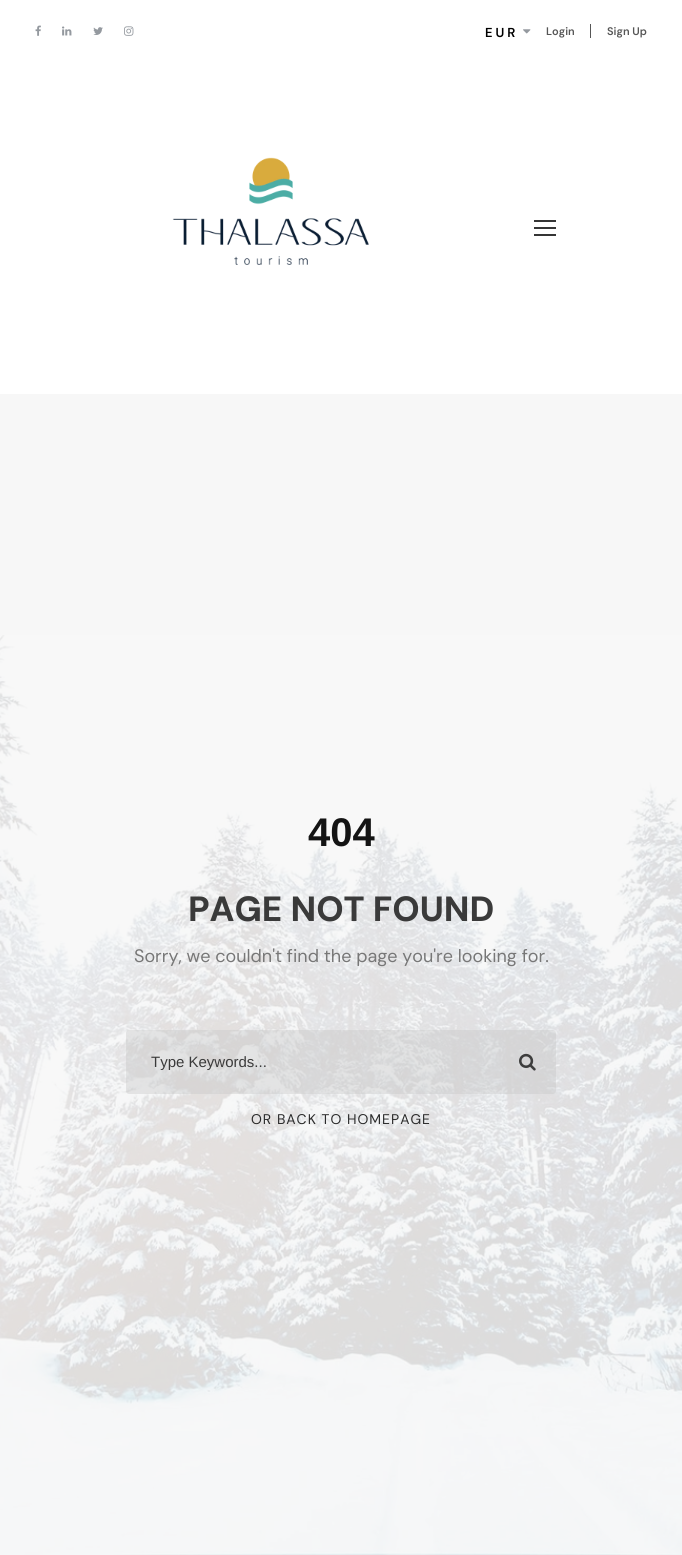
import math
import cairocffi as cairo

surface = cairo.ImageSurface(cairo.FORMAT_RGB24, 682, 1555)
ctx = cairo.Context(surface)
options = cairo.FontOptions()
options.set_hint_metrics(cairo.HINT_METRICS_OFF)
options.set_hint_style(cairo.HINT_STYLE_NONE)
ctx.set_font_options(options)
ctx.set_miter_limit(4)


def rgb(r, g, b):
    ctx.set_source_rgb(r / 255, g / 255, b / 255)


def face(family, size, italic, bold):
    ctx.select_font_face(family, cairo.FONT_SLANT_ITALIC if italic else cairo.FONT_SLANT_NORMAL, cairo.FONT_WEIGHT_BOLD if bold else cairo.FONT_WEIGHT_NORMAL)
    ctx.set_font_size(size)


def label(x, y, s):
    ctx.move_to(x, y)
    ctx.show_text(s)


def tracked(x, y, s, letter, word):
    ctx.move_to(x, y)
    for ch in s:
        ctx.show_text(ch)
        ctx.rel_move_to(letter + word * (ch == ' '), 0)


def rect(x, y, w, h):
    ctx.rectangle(x, y, w, h)
    ctx.fill()


def rrect(x, y, w, h, r):
    ctx.new_sub_path()
    for i, (u, v) in enumerate([(x + w - r, y + h - r), (x + r, y + h - r), (x + r, y + r), (x + w - r, y + r)]):
        ctx.arc(u, v, r, i * math.pi / 2, (i + 1) * math.pi / 2)
    ctx.close_path()


def image(path, x, y, w, h):
    ctx.save()
    ctx.set_source_surface(cairo.ImageSurface.create_from_png(path), x, y)
    ctx.rectangle(x, y, w, h)
    ctx.fill()
    ctx.restore()


rgb(255, 255, 255)
ctx.paint()
image('image0.png', 35, 25, 6, 11)
image('image1.png', 62, 26, 10, 10)
image('image2.png', 93, 27, 10, 8)
image('image3.png', 124, 26, 10, 10)
face('DM Sans SemiBold', 13, 0, 0)
rgb(0, 0, 0)
tracked(485, 37, 'EUR', 3, 0)
image('image4.png', 523, 29, 8, 5)
face('DM Sans SemiBold', 11, 0, 0)
rgb(86, 86, 86)
label(546, 35, 'Login')
rect(590, 24, 1, 14)
label(607, 35, 'Sign Up')
image('image5.png', 172, 157, 197, 108)
rgb(53, 53, 53)
rect(534, 220, 22, 2)
rect(534, 227, 22, 2)
rect(534, 234, 22, 2)
rgb(247, 247, 247)
rect(0, 394, 682, 1161)
image('image6.png', 0, 635, 682, 920)
face('Liberation Sans', 40, 0, 1)
rgb(20, 20, 20)
label(308, 846, '404')
face('DM Sans ExtraBold', 35, 0, 0)
rgb(58, 58, 58)
label(188, 921, 'PAGE NOT FOUND')
face('DM Sans', 18, 0, 0)
rgb(119, 119, 119)
label(134, 962, 'Sorry, we couldn\'t find the page you\'re looking for.')
ctx.set_source_rgba(0.776, 0.776, 0.776, 0.4)
rrect(126, 1030, 430, 64, 3)
ctx.fill()
ctx.save()
ctx.rectangle(151, 1053, 345, 17)
ctx.clip()
face('Liberation Sans', 15, 0, 0)
rgb(58, 58, 58)
label(151, 1067, 'Type Keywords...')
ctx.restore()
image('image7.png', 519, 1053, 17, 18)
face('DM Sans', 14, 0, 0)
rgb(43, 43, 43)
tracked(251, 1124, 'OR BACK TO HOMEPAGE', 1, 0)
surface.write_to_png('render.png')
